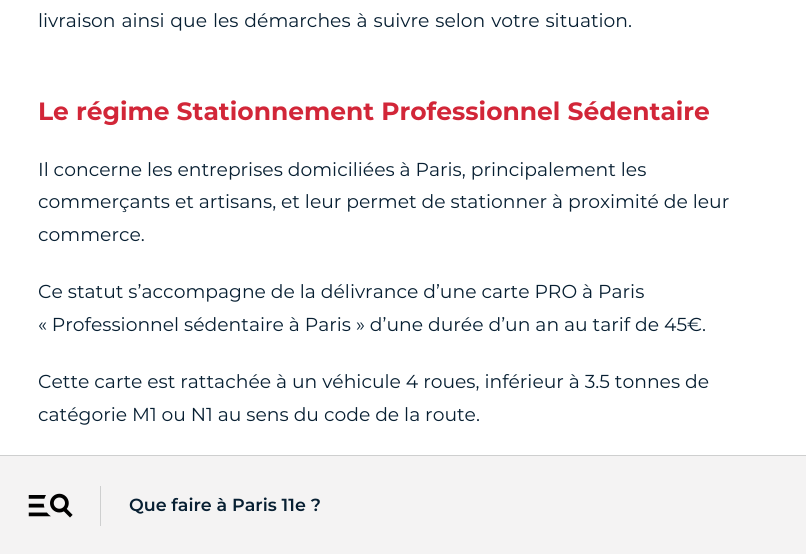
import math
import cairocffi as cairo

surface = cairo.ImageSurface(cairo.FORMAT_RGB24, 806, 554)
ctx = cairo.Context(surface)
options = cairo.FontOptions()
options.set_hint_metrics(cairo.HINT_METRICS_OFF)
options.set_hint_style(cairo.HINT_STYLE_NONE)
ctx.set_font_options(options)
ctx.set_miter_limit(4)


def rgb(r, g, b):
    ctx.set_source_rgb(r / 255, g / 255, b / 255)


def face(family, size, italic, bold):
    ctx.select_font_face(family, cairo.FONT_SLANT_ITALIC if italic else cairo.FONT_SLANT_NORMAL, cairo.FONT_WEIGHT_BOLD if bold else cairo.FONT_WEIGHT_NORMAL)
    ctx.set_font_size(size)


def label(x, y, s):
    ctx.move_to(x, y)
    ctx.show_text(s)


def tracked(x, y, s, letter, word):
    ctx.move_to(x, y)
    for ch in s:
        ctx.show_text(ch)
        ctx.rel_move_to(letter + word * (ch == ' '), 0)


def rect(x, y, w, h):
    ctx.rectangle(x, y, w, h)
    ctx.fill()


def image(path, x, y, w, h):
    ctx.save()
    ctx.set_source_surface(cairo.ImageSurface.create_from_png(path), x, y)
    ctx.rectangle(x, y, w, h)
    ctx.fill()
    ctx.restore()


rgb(255, 255, 255)
ctx.paint()
face('Montserrat', 18.75, 0, 0)
rgb(7, 31, 50)
tracked(38, 27, 'livraison ainsi que les démarches à suivre selon votre situation.', 0, 1)
face('Montserrat', 25, 0, 1)
rgb(210, 38, 56)
label(38, 120, 'Le régime Stationnement Professionnel Sédentaire')
face('Montserrat', 18.75, 0, 0)
rgb(7, 31, 50)
label(38, 176, 'Il concerne les entreprises domiciliées à Paris, principalement les')
label(38, 208, 'commerçants et artisans, et leur permet de stationner à proximité de leur')
label(38, 241, 'commerce.')
label(38, 298, 'Ce statut s’accompagne de la délivrance d’une carte PRO à Paris')
label(38, 331, '« Professionnel sédentaire à Paris » d’une durée d’un an au tarif de 45€.')
label(38, 388, 'Cette carte est rattachée à un véhicule 4 roues, inférieur à 3.5 tonnes de')
label(38, 421, 'catégorie M1 ou N1 au sens du code de la route.')
rgb(244, 243, 243)
rect(0, 456, 806, 98)
rgb(206, 207, 207)
rect(0, 455, 806, 1)
image('image0.png', 28, 493, 45, 25)
rect(100, 486, 1, 40)
face('Montserrat SemiBold', 17.5, 0, 0)
rgb(7, 31, 50)
label(129, 511, 'Que faire à Paris 11e ?')
surface.write_to_png('render.png')
